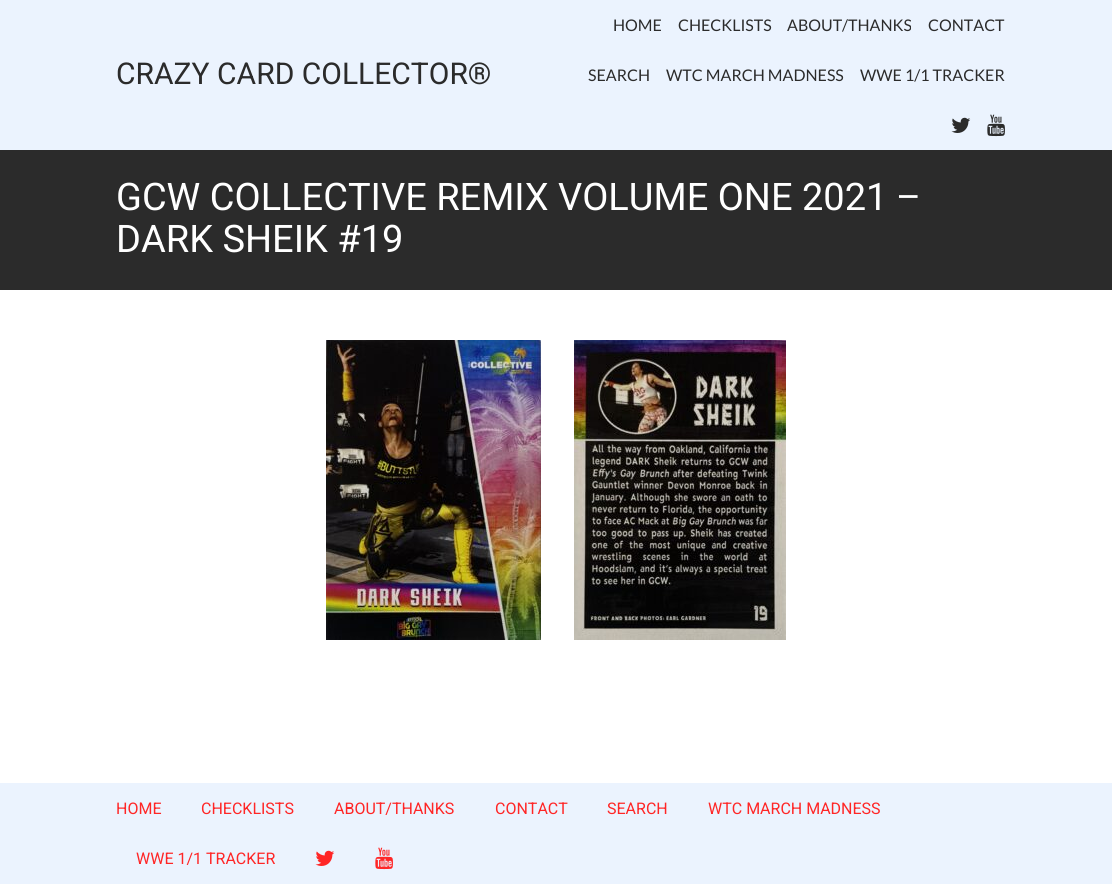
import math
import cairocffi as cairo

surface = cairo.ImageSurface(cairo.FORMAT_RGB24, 1112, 884)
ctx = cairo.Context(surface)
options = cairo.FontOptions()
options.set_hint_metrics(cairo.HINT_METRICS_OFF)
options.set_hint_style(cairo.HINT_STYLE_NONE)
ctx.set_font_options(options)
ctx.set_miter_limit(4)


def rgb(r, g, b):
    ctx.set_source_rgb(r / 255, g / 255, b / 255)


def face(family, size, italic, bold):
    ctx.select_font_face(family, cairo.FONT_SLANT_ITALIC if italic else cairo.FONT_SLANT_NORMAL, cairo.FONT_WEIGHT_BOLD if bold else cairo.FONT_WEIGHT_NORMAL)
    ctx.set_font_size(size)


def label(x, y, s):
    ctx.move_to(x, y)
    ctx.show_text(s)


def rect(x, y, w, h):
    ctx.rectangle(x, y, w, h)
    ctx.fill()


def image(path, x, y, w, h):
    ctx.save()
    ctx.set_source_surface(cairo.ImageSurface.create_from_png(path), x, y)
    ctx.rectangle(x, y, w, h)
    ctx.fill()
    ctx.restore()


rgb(255, 255, 255)
ctx.paint()
rgb(235, 243, 254)
rect(0, 0, 1112, 150)
face('Heebo', 30, 0, 0)
rgb(43, 43, 43)
label(116, 84, 'CRAZY CARD COLLECTOR®')
face('Lato', 16, 0, 0)
label(613, 31, 'HOME')
label(678, 31, 'CHECKLISTS')
label(787, 31, 'ABOUT/THANKS')
label(928, 31, 'CONTACT')
label(588, 81, 'SEARCH')
label(666, 81, 'WTC MARCH MADNESS')
label(860, 81, 'WWE 1/1 TRACKER')
image('image0.png', 951, 117, 20, 16)
image('image1.png', 987, 114, 18, 23)
rect(0, 150, 1112, 140)
face('Heebo', 38, 0, 0)
rgb(255, 255, 255)
label(116, 210, 'GCW COLLECTIVE REMIX VOLUME ONE 2021 –')
label(116, 252, 'DARK SHEIK #19')
image('image2.png', 326, 340, 215, 300)
image('image3.png', 574, 340, 212, 300)
rgb(235, 243, 254)
rect(0, 783, 1112, 101)
face('Roboto', 16, 0, 0)
rgb(255, 38, 38)
label(116, 814, 'HOME')
label(201, 814, 'CHECKLISTS')
label(334, 814, 'ABOUT/THANKS')
label(495, 814, 'CONTACT')
label(607, 814, 'SEARCH')
label(708, 814, 'WTC MARCH MADNESS')
label(136, 864, 'WWE 1/1 TRACKER')
image('image4.png', 315, 850, 20, 16)
image('image5.png', 375, 847, 18, 23)
surface.write_to_png('render.png')
